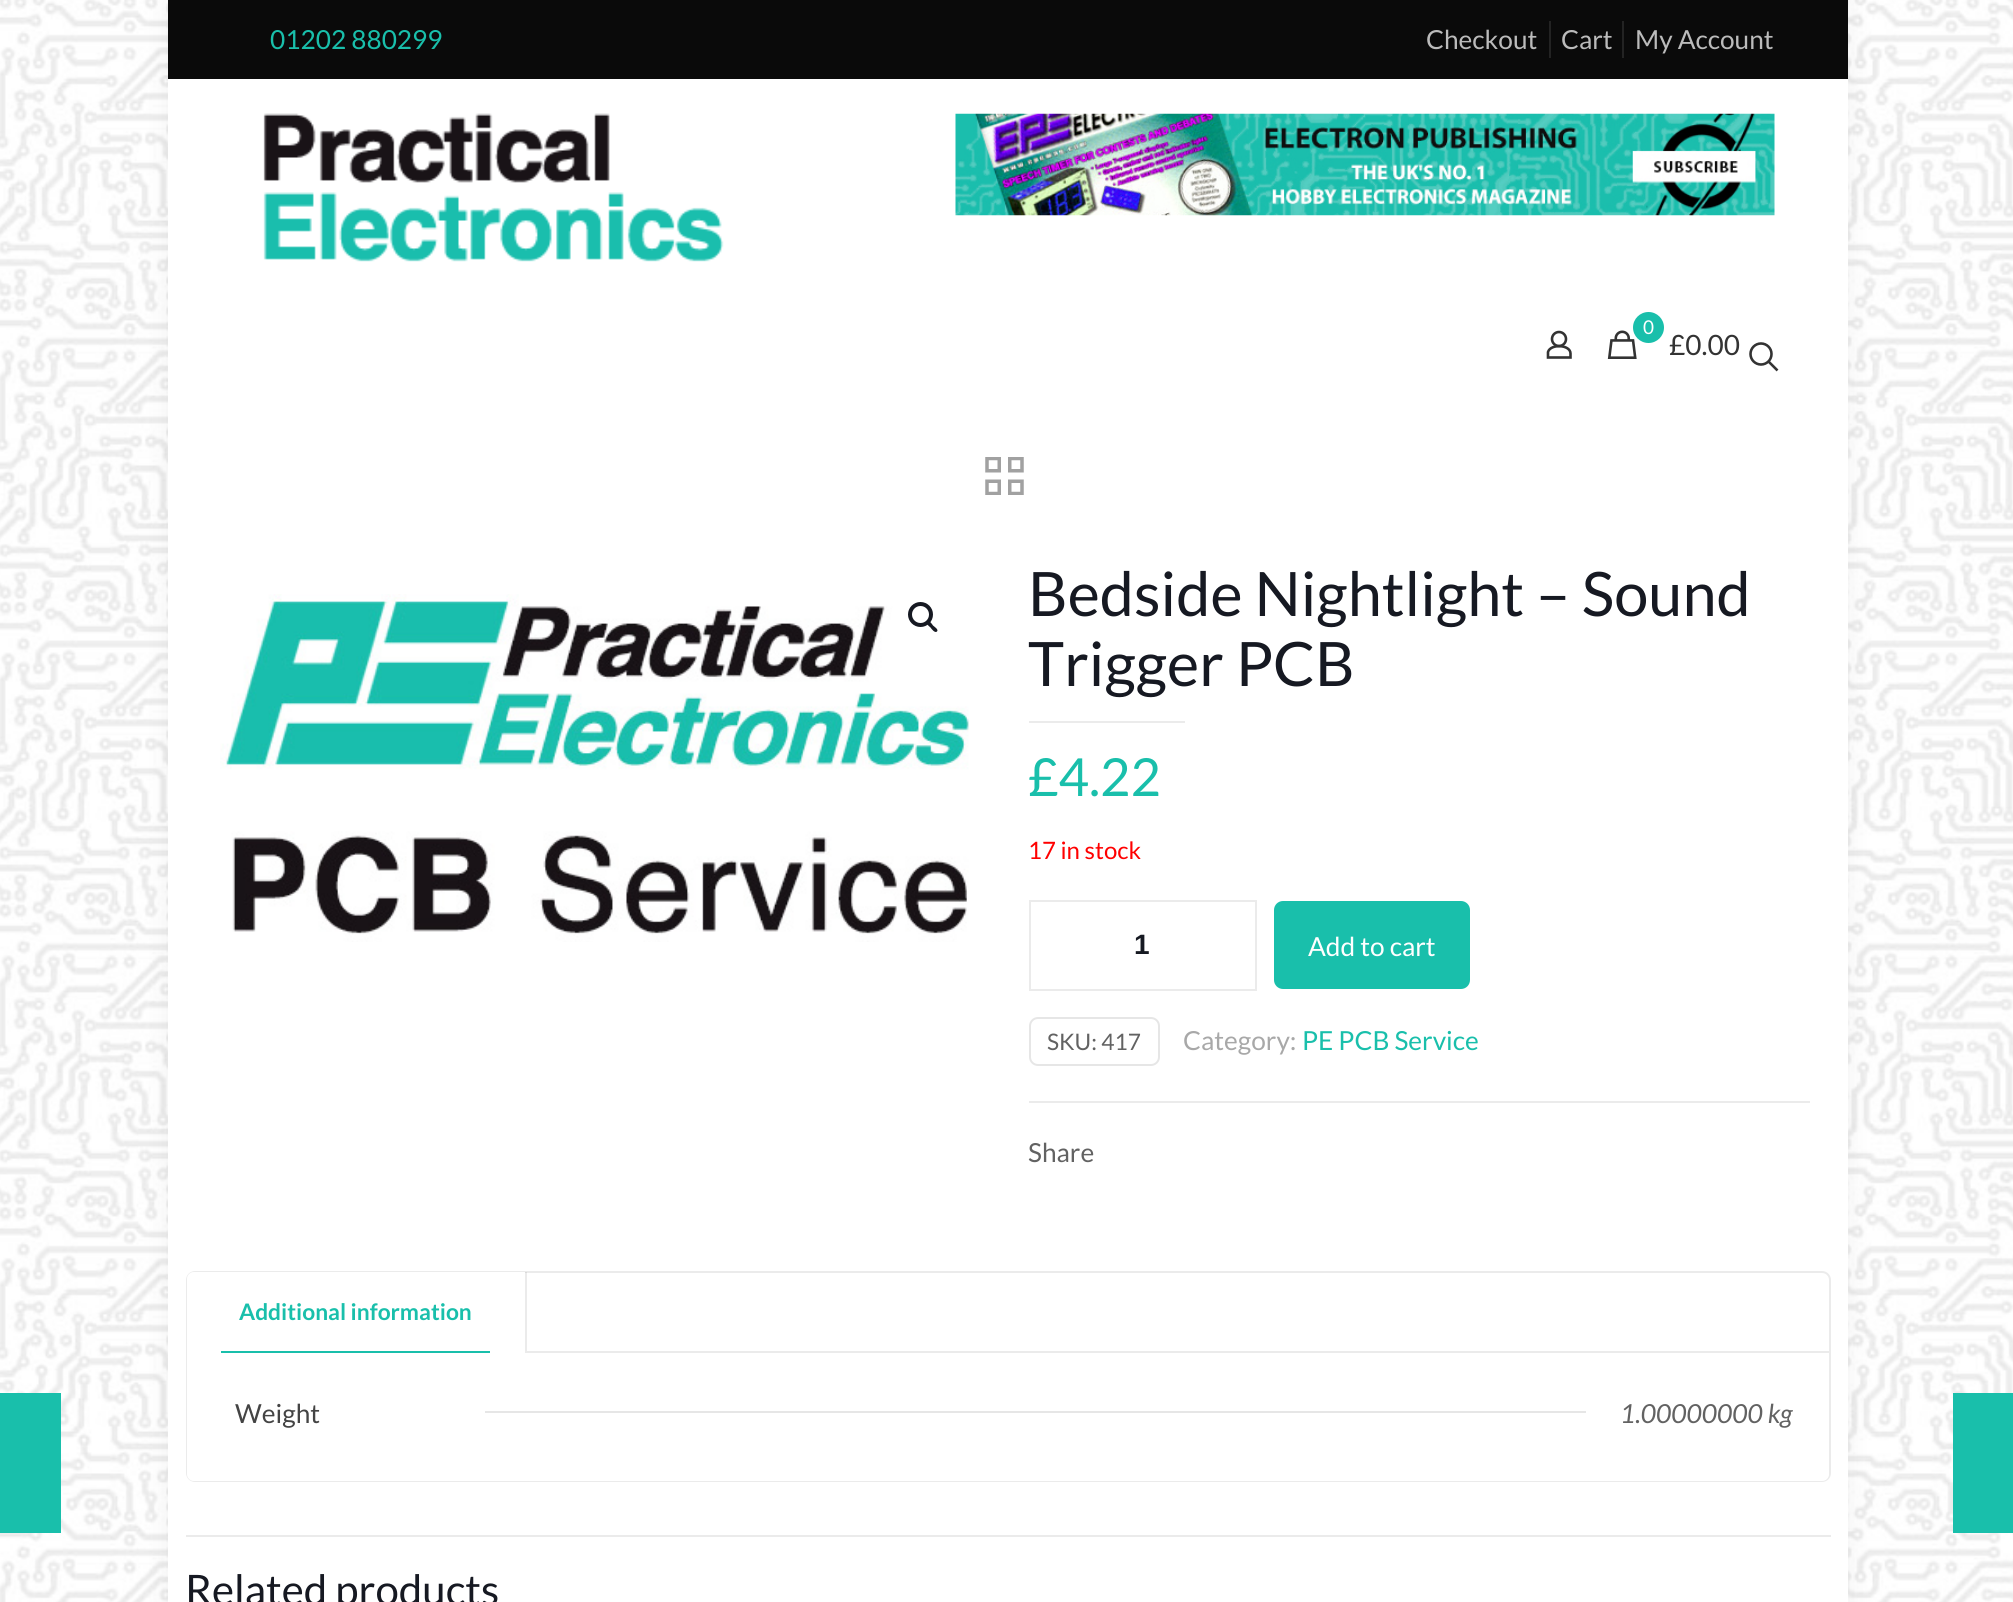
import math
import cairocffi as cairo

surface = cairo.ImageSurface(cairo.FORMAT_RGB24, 2013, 1602)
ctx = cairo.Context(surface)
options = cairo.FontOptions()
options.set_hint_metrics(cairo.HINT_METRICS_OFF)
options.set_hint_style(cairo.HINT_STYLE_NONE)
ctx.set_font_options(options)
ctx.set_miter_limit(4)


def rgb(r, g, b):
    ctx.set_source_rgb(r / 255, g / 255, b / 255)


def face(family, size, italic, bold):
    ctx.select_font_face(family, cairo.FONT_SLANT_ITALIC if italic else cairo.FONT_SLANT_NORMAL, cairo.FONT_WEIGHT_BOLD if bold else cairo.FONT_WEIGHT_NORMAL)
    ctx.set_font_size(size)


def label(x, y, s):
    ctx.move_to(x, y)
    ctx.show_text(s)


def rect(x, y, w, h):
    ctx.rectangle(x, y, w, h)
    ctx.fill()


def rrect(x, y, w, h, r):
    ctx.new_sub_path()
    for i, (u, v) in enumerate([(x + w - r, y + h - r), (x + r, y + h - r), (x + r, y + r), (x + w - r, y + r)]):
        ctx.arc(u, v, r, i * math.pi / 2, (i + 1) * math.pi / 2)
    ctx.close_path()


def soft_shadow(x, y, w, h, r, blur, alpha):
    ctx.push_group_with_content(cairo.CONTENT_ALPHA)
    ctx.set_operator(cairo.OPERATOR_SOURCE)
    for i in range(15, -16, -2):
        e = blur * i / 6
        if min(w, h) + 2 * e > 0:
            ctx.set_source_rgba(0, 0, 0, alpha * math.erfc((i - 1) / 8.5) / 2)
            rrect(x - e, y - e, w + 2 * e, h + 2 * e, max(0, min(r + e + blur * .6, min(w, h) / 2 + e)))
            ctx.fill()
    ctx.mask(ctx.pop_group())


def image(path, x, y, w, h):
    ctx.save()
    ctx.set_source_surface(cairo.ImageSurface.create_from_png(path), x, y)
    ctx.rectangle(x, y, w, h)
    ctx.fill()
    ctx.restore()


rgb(255, 255, 255)
ctx.paint()
image('image0.png', 0, 0, 2013, 1602)
rgb(25, 191, 171)
rect(0, 1393, 61, 140)
rgb(0, 0, 0)
soft_shadow(168, 0, 1680, 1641, 0, 13, 0.06)
rgb(255, 255, 255)
rect(168, 79, 1680, 1523)
rgb(10, 10, 10)
rect(168, 0, 1680, 79)
face('Lato', 26.25, 0, 0)
rgb(25, 191, 171)
label(270, 49, '01202 880299')
rgb(35, 35, 35)
rect(1549, 21, 2, 37)
rgb(187, 187, 187)
label(1426, 49, 'Checkout')
rgb(35, 35, 35)
rect(1622, 21, 2, 37)
rgb(187, 187, 187)
label(1561, 49, 'Cart')
label(1635, 49, 'My Account')
image('image1.png', 263, 113, 461, 149)
image('image2.png', 955, 113, 820, 103)
ctx.arc(1559, 339, 7, 0, 2 * math.pi)
rgb(51, 51, 51)
ctx.set_line_width(2.6)
ctx.stroke()
ctx.new_path()
ctx.move_to(1570.5, 353.5)
ctx.line_to(1570.5, 357.5)
ctx.line_to(1548, 357.5)
ctx.line_to(1548, 352)
ctx.curve_to(1550.5, 343.5, 1570.5, 344.5, 1570.5, 353.5)
ctx.close_path()
ctx.stroke()
image('image3.png', 1607, 330, 30, 29)
rgb(25, 191, 171)
ctx.arc(1648.5, 327.5, 15.5, 0, 2 * math.pi)
ctx.fill()
face('Lato', 19, 0, 0)
rgb(255, 255, 255)
label(1643, 334, '0')
face('Lato', 28, 0, 0)
rgb(51, 51, 51)
label(1669, 355, '£0.00')
ctx.new_path()
ctx.arc(1761, 354, 10.5, 0, 2 * math.pi)
ctx.stroke()
ctx.new_path()
ctx.move_to(1768.5, 361.5)
ctx.line_to(1777.5, 370.5)
ctx.stroke()
image('image4.png', 985, 457, 39, 38)
image('image5.png', 220, 594, 749, 348)
rgb(255, 255, 255)
ctx.arc(926, 618, 35, 0, 2 * math.pi)
ctx.fill()
ctx.arc(920.5, 614.5, 10.5, 0, 2 * math.pi)
rgb(22, 25, 34)
ctx.set_line_width(4)
ctx.stroke()
ctx.new_path()
ctx.move_to(927, 621.5)
ctx.curve_to(929, 619.5, 932, 624, 933, 625.5)
ctx.curve_to(934, 626.5, 939, 629.5, 937, 631.5)
ctx.curve_to(935, 633.5, 931.5, 629, 930.5, 627.5)
ctx.curve_to(929.5, 626.5, 925, 623.5, 927, 621.5)
ctx.close_path()
ctx.fill()
face('Lato', 61.25, 0, 0)
label(1028, 616, 'Bedside Nightlight – Sound')
label(1028, 686, 'Trigger PCB')
rgb(235, 235, 235)
rect(1029, 721, 156, 2)
face('Lato', 52.5, 0, 0)
rgb(25, 191, 171)
label(1028, 796, '£4.22')
face('Lato', 24, 0, 0)
rgb(255, 0, 0)
label(1028, 859, '17 in stock')
ctx.rectangle(1030, 901, 226, 89)
rgb(235, 235, 235)
ctx.set_line_width(2)
ctx.stroke()
face('Liberation Sans', 28, 0, 1)
rgb(22, 25, 34)
label(1134, 954, '1')
rgb(25, 191, 171)
rrect(1274, 901, 196, 88, 9)
ctx.fill()
face('Lato', 26.25, 0, 0)
rgb(255, 255, 255)
label(1308, 956, 'Add to cart')
rrect(1030, 1018, 129, 47, 8)
rgb(230, 230, 230)
ctx.stroke()
face('Lato', 22.75, 0, 0)
rgb(98, 98, 98)
label(1047, 1050, 'SKU: 417')
face('Lato', 26.25, 0, 0)
rgb(168, 168, 168)
label(1183, 1050, 'Category:')
rgb(25, 191, 171)
label(1302, 1050, 'PE PCB Service')
rgb(235, 235, 235)
rect(1029, 1101, 781, 2)
rgb(98, 98, 98)
label(1028, 1162, 'Share')
rrect(187, 1272, 1643, 209, 8)
rgb(235, 235, 235)
ctx.stroke()
ctx.set_source_rgba(0, 0, 0, 0.08)
rect(525, 1351, 1304, 2)
rect(525, 1272, 2, 79)
rgb(255, 255, 255)
ctx.new_path()
ctx.move_to(194, 1272)
ctx.line_to(525, 1272)
ctx.line_to(525, 1351)
ctx.line_to(187, 1351)
ctx.line_to(187, 1279)
ctx.curve_to(187, 1275, 190, 1272, 194, 1272)
ctx.close_path()
ctx.fill()
face('Lato', 22.75, 0, 1)
rgb(25, 191, 171)
label(239, 1320, 'Additional information')
rect(221, 1351, 269, 2)
rgb(255, 255, 255)
rect(187, 1351, 1, 2)
ctx.new_path()
ctx.move_to(187, 1353)
ctx.line_to(1829, 1353)
ctx.line_to(1829, 1474)
ctx.curve_to(1829, 1478, 1826, 1481, 1822, 1481)
ctx.line_to(194, 1481)
ctx.curve_to(190, 1481, 187, 1478, 187, 1474)
ctx.close_path()
ctx.fill()
face('Lato', 26.25, 0, 0)
rgb(68, 68, 68)
label(235, 1423, 'Weight')
rgb(230, 230, 230)
rect(485, 1411, 1101, 2)
face('Lato', 26.25, 1, 0)
rgb(98, 98, 98)
label(1620, 1423, '1.00000000 kg')
rgb(235, 235, 235)
rect(186, 1535, 1645, 2)
face('Lato', 42, 0, 0)
rgb(22, 25, 34)
label(185, 1605, 'Related products')
rgb(25, 191, 171)
rect(1953, 1393, 60, 140)
surface.write_to_png('render.png')
